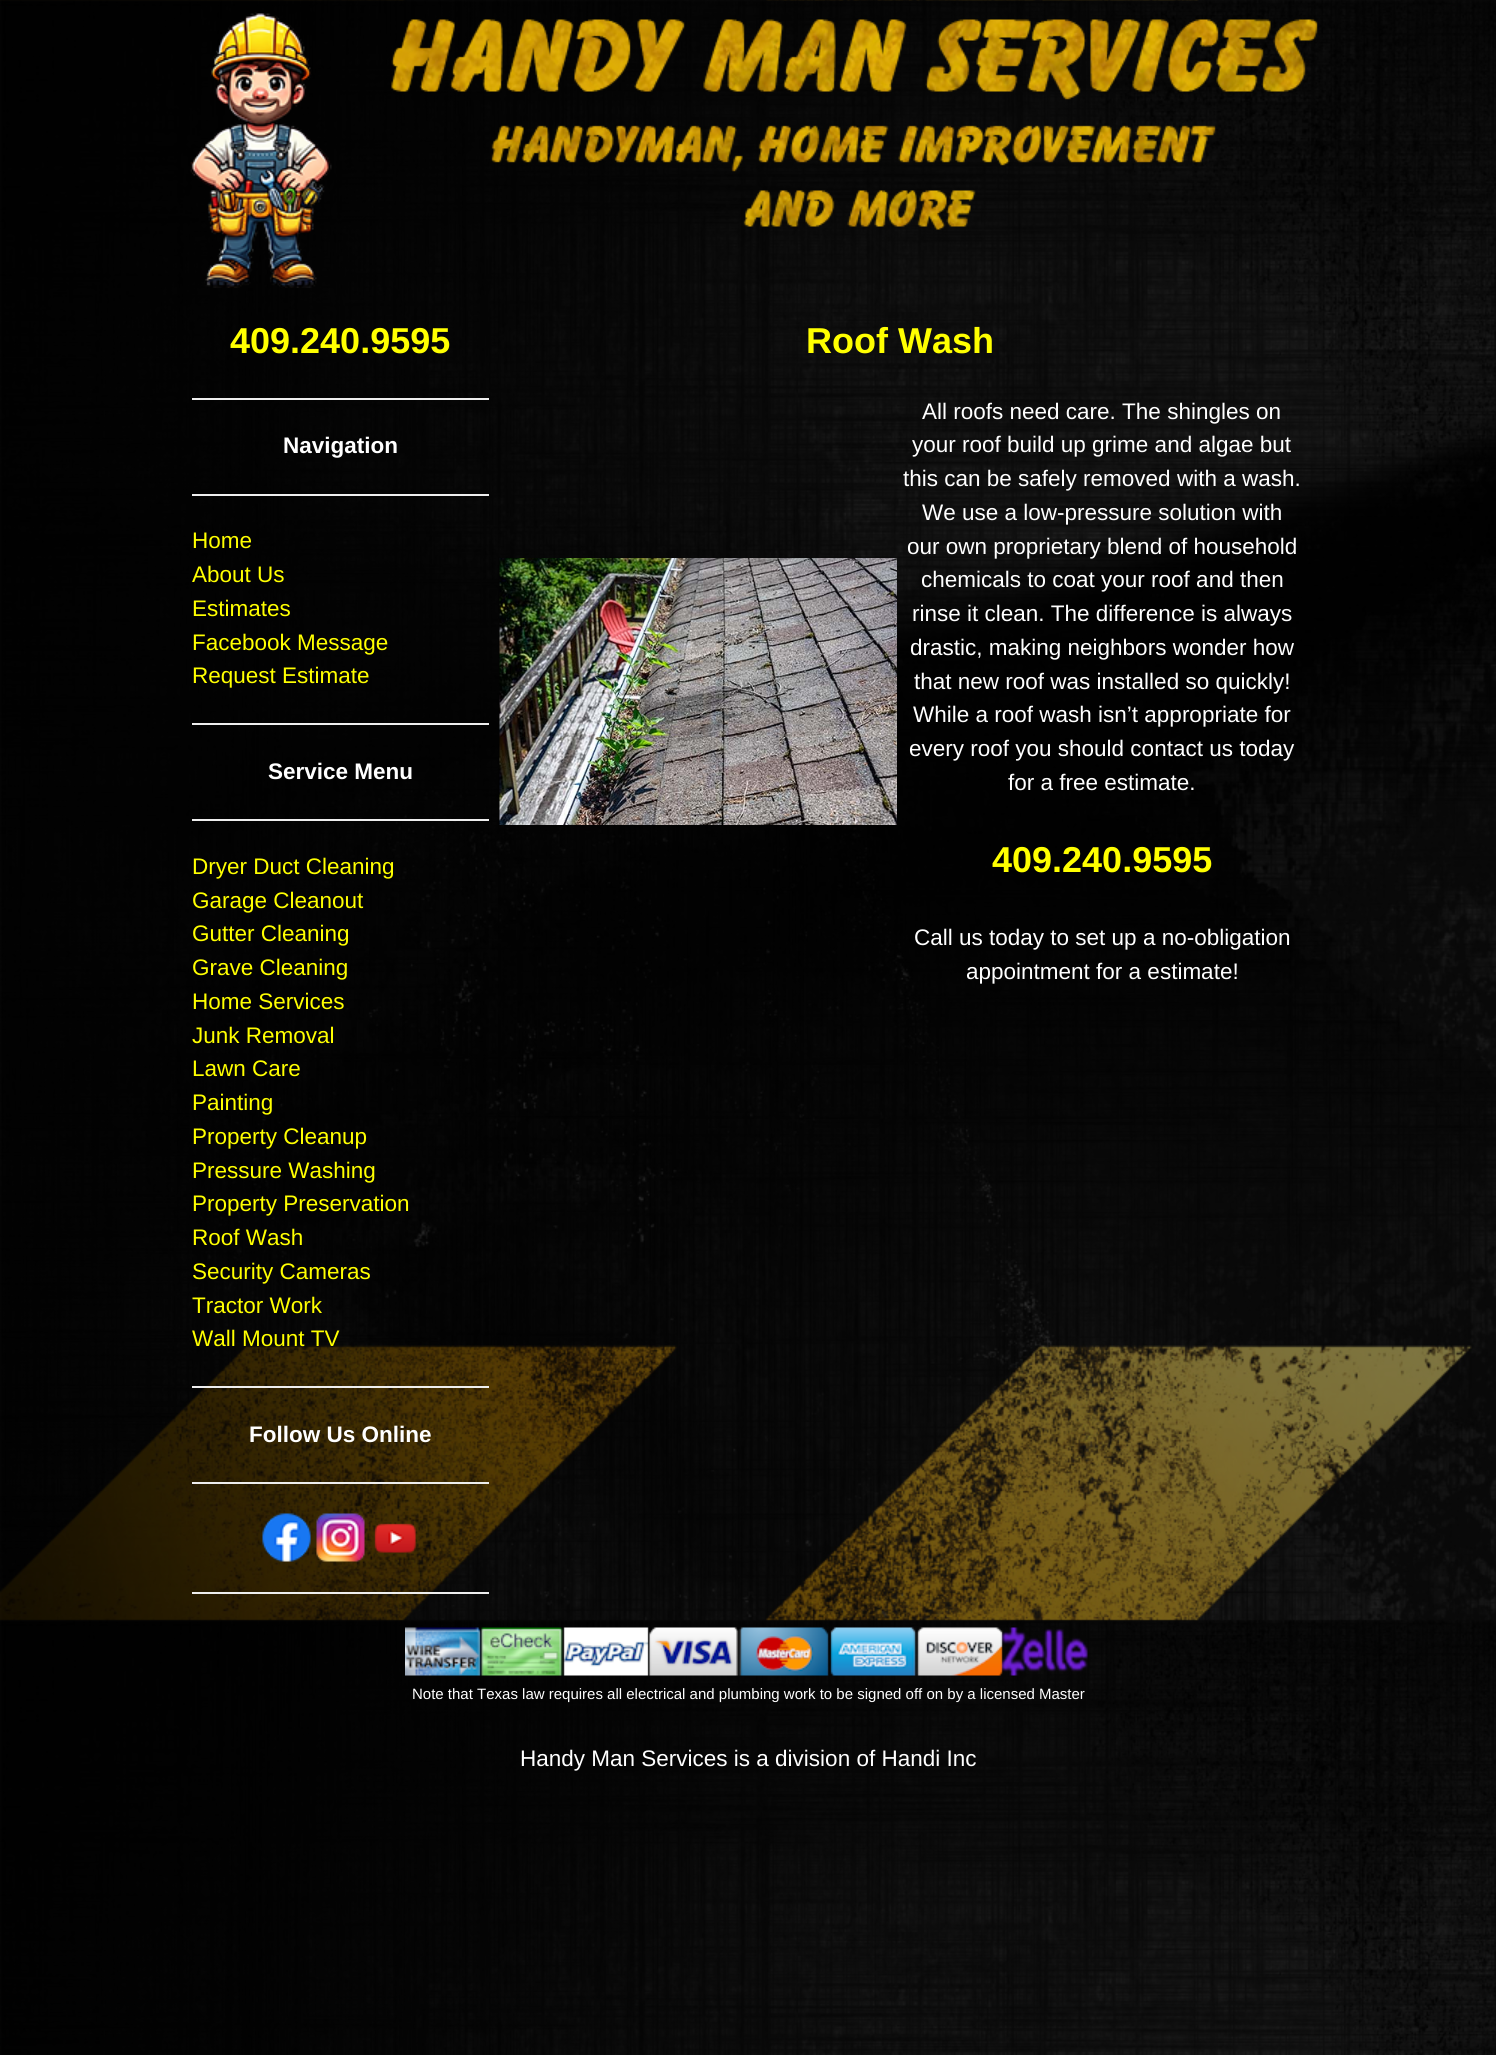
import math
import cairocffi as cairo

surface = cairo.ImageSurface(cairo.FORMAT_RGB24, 1496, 2055)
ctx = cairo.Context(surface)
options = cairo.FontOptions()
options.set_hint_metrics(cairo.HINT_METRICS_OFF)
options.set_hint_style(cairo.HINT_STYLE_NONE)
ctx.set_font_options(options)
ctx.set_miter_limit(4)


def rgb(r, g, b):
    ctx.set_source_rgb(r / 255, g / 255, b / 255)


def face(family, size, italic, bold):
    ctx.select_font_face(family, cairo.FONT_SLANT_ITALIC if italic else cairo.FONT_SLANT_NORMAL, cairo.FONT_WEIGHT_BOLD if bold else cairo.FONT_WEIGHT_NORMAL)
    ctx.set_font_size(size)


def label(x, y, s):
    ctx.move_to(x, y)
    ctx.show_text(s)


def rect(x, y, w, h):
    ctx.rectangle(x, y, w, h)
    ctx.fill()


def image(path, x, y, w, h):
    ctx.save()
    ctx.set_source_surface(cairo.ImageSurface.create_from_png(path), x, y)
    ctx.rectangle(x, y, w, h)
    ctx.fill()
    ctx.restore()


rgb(0, 0, 0)
ctx.paint()
image('image0.png', 0, 0, 1496, 2055)
image('image1.png', 190, 12, 1128, 276)
face('Liberation Sans', 36, 0, 1)
rgb(255, 255, 0)
label(230, 353, '409.240.9595')
rgb(238, 238, 238)
rect(192, 398, 297, 2)
face('Liberation Sans', 22.5, 0, 1)
rgb(255, 255, 255)
label(283, 453, 'Navigation')
rgb(238, 238, 238)
rect(192, 494, 297, 2)
face('Liberation Sans', 22.5, 0, 0)
rgb(255, 255, 0)
label(192, 548, 'Home')
label(192, 582, 'About Us')
label(192, 616, 'Estimates')
label(192, 650, 'Facebook Message')
label(192, 683, 'Request Estimate')
rgb(238, 238, 238)
rect(192, 723, 297, 2)
face('Liberation Sans', 22.5, 0, 1)
rgb(255, 255, 255)
label(268, 779, 'Service Menu')
rgb(238, 238, 238)
rect(192, 819, 297, 2)
face('Liberation Sans', 22.5, 0, 0)
rgb(255, 255, 0)
label(192, 874, 'Dryer Duct Cleaning')
label(192, 908, 'Garage Cleanout')
label(192, 941, 'Gutter Cleaning')
label(192, 975, 'Grave Cleaning')
label(192, 1009, 'Home Services')
label(192, 1043, 'Junk Removal')
label(192, 1076, 'Lawn Care')
label(192, 1110, 'Painting')
label(192, 1144, 'Property Cleanup')
label(192, 1178, 'Pressure Washing')
label(192, 1211, 'Property Preservation')
label(192, 1245, 'Roof Wash')
label(192, 1279, 'Security Cameras')
label(192, 1313, 'Tractor Work')
label(192, 1346, 'Wall Mount TV')
rgb(238, 238, 238)
rect(192, 1386, 297, 2)
face('Liberation Sans', 22.5, 0, 1)
rgb(255, 255, 255)
label(249, 1442, 'Follow Us Online')
rgb(238, 238, 238)
rect(192, 1482, 297, 2)
image('image2.png', 262, 1513, 49, 49)
image('image3.png', 316, 1513, 49, 49)
image('image4.png', 374, 1523, 42, 30)
rect(192, 1592, 297, 2)
face('Liberation Sans', 36, 0, 1)
rgb(255, 255, 0)
label(806, 353, 'Roof Wash')
image('image5.png', 499, 558, 398, 267)
face('Liberation Sans', 22.5, 0, 0)
rgb(255, 255, 255)
label(922, 419, 'All roofs need care. The shingles on')
label(912, 452, 'your roof build up grime and algae but')
label(903, 486, 'this can be safely removed with a wash.')
label(922, 520, 'We use a low-pressure solution with')
label(907, 554, 'our own proprietary blend of household')
label(921, 587, 'chemicals to coat your roof and then')
label(912, 621, 'rinse it clean. The difference is always')
label(910, 655, 'drastic, making neighbors wonder how')
label(914, 689, 'that new roof was installed so quickly!')
label(913, 722, 'While a roof wash isn’t appropriate for')
label(909, 756, 'every roof you should contact us today')
label(1008, 790, 'for a free estimate.')
face('Liberation Sans', 36, 0, 1)
rgb(255, 255, 0)
label(992, 872, '409.240.9595')
face('Liberation Sans', 22.5, 0, 0)
rgb(255, 255, 255)
label(914, 945, 'Call us today to set up a no-obligation')
label(966, 979, 'appointment for a estimate!')
image('image6.png', 405, 1627, 683, 49)
face('Liberation Sans', 15, 0, 0)
label(412, 1699, 'Note that Texas law requires all electrical and plumbing work to be signed off on by a licensed Master')
face('Liberation Sans', 22.5, 0, 0)
label(520, 1766, 'Handy Man Services is a division of Handi Inc')
surface.write_to_png('render.png')
